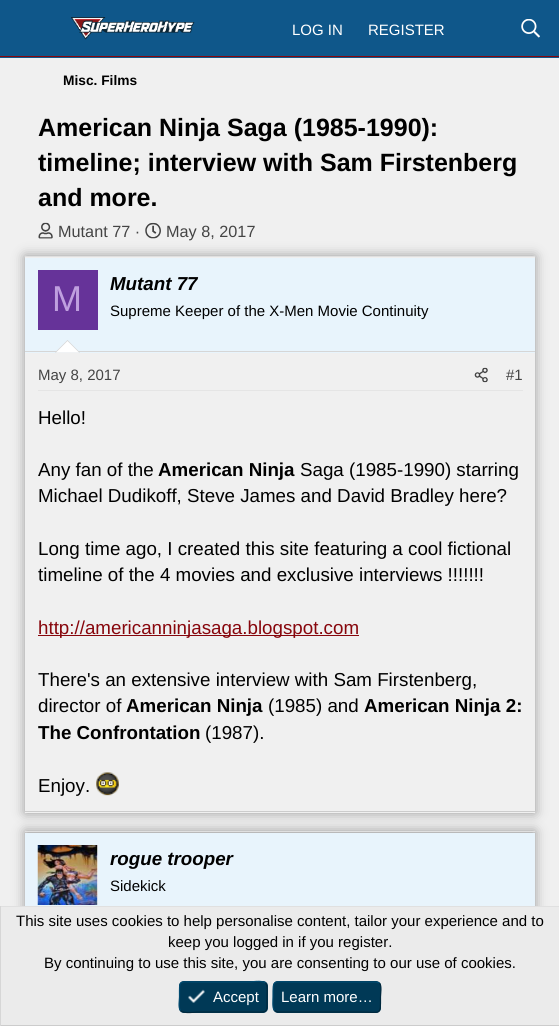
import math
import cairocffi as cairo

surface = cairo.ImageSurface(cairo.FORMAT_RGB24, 559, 1026)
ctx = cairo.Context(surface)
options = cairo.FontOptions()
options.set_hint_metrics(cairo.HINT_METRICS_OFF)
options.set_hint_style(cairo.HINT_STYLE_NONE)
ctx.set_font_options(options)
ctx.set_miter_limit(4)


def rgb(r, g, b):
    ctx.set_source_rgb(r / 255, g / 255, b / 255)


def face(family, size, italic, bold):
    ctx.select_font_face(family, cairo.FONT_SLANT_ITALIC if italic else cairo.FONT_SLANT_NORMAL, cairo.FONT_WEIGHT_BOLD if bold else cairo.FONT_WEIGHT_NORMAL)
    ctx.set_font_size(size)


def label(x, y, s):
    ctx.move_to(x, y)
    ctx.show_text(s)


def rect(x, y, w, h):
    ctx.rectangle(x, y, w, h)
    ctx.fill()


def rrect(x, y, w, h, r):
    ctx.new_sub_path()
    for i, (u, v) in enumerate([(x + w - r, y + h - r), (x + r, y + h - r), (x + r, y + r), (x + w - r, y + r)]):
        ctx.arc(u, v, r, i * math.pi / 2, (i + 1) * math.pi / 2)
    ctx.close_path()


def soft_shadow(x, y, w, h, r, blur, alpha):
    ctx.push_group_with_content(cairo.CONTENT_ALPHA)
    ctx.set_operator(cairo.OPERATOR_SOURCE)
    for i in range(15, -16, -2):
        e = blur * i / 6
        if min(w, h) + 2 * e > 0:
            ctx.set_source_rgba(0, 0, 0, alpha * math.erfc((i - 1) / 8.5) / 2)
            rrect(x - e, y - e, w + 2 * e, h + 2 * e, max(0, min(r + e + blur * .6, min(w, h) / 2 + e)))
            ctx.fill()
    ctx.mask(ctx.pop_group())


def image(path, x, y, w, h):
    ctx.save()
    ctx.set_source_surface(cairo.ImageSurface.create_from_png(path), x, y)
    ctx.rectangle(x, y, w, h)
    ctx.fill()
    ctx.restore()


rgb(240, 240, 240)
ctx.paint()
rgb(15, 87, 138)
rect(0, 0, 559, 58)
rgb(135, 6, 12)
rect(0, 56, 559, 1)
image('image0.png', 71, 17, 124, 23)
face('Liberation Sans', 15, 0, 0)
rgb(255, 255, 255)
label(292, 35, 'LOG IN')
label(368, 35, 'REGISTER')
image('image1.png', 521, 19, 19, 19)
face('Liberation Sans', 13.75, 0, 1)
rgb(0, 0, 0)
label(63, 85, 'Misc. Films')
face('Liberation Sans', 25, 0, 1)
label(38, 136, 'American Ninja Saga (1985-1990):')
label(38, 171, 'timeline; interview with Sam Firstenberg')
label(38, 206, 'and more.')
ctx.save()
ctx.set_fill_rule(cairo.FILL_RULE_EVEN_ODD)
ctx.new_path()
ctx.move_to(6, 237)
ctx.line_to(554, 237)
ctx.line_to(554, 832)
ctx.line_to(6, 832)
ctx.close_path()
ctx.move_to(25, 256)
ctx.line_to(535, 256)
ctx.line_to(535, 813)
ctx.line_to(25, 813)
ctx.close_path()
ctx.clip()
rgb(153, 153, 153)
soft_shadow(25, 256, 510, 557, 0, 6, 1)
ctx.restore()
image('image2.png', 38, 222, 15, 17)
face('Liberation Sans', 16.25, 0, 0)
rgb(68, 68, 68)
label(58, 237, 'Mutant 77 ·')
image('image3.png', 145, 222, 16, 17)
label(166, 237, 'May 8, 2017')
rgb(224, 224, 224)
rect(25, 256, 510, 1)
rgb(204, 204, 204)
rect(25, 811, 510, 1)
rgb(232, 244, 252)
rect(25, 258, 510, 95)
rgb(214, 214, 214)
rect(25, 351, 510, 1)
rgb(102, 51, 153)
rect(38, 270, 60, 60)
face('Liberation Sans', 36, 0, 0)
rgb(191, 159, 223)
label(52, 311, 'M')
face('Liberation Sans', 18.75, 1, 1)
rgb(0, 0, 0)
label(110, 290, 'Mutant 77')
face('Liberation Sans', 15, 0, 0)
label(110, 316, 'Supreme Keeper of the X-Men Movie Continuity')
rgb(214, 214, 214)
ctx.new_path()
ctx.move_to(80, 352.5)
ctx.line_to(55, 352.5)
ctx.line_to(67.5, 340)
ctx.close_path()
ctx.fill()
rgb(255, 255, 255)
ctx.new_path()
ctx.move_to(79, 352.5)
ctx.line_to(56, 352.5)
ctx.line_to(67.5, 341)
ctx.close_path()
ctx.fill()
rgb(229, 229, 229)
rect(38, 390, 485, 1)
rgb(68, 68, 68)
label(38, 380, 'May 8, 2017')
image('image4.png', 474, 367, 14, 16)
label(506, 380, '#1')
face('Liberation Sans', 18.75, 0, 0)
rgb(0, 0, 0)
label(38, 424, 'Hello!')
label(38, 476, 'Any fan of the')
face('Liberation Sans', 18.75, 0, 1)
label(158, 476, 'American Ninja')
face('Liberation Sans', 18.75, 0, 0)
label(300, 476, 'Saga (1985-1990) starring')
label(38, 502, 'Michael Dudikoff, Steve James and David Bradley here?')
label(38, 555, 'Long time ago, I created this site featuring a cool fictional')
label(38, 581, 'timeline of the 4 movies and exclusive interviews !!!!!!!')
rgb(135, 6, 12)
rect(38, 635, 321, 1)
label(38, 634, 'http://americanninjasaga.blogspot.com')
rgb(0, 0, 0)
label(38, 686, 'There\'s an extensive interview with Sam Firstenberg,')
label(38, 712, 'director of')
face('Liberation Sans', 18.75, 0, 1)
label(126, 712, 'American Ninja')
face('Liberation Sans', 18.75, 0, 0)
label(268, 712, '(1985) and')
face('Liberation Sans', 18.75, 0, 1)
label(364, 712, 'American Ninja 2:')
label(38, 739, 'The Confrontation')
face('Liberation Sans', 18.75, 0, 0)
label(205, 739, '(1987).')
label(38, 792, 'Enjoy.')
image('image5.png', 96, 772, 23, 24)
rgb(153, 153, 153)
soft_shadow(25, 831, 510, 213, 0, 6, 1)
rgb(224, 224, 224)
rect(25, 831, 510, 1)
rgb(232, 244, 252)
rect(25, 833, 510, 73)
rgb(255, 255, 255)
rect(97, 845, 1, 60)
image('image6.png', 37, 845, 61, 60)
face('Liberation Sans', 18.75, 1, 1)
rgb(0, 0, 0)
label(110, 865, 'rogue trooper')
face('Liberation Sans', 15, 0, 0)
label(110, 891, 'Sidekick')
rgb(235, 235, 235)
rect(1, 907, 558, 118)
rgb(224, 224, 224)
rect(0, 906, 559, 1)
rgb(204, 204, 204)
rect(0, 1025, 559, 1)
rgb(214, 214, 214)
rect(0, 906, 1, 120)
rgb(0, 0, 0)
label(16, 926, 'This site uses cookies to help personalise content, tailor your experience and to')
label(168, 947, 'keep you logged in if you register.')
label(44, 968, 'By continuing to use this site, you are consenting to our use of cookies.')
rgb(0, 57, 86)
rrect(179, 981, 89, 32, 5)
ctx.fill()
ctx.new_path()
ctx.move_to(265.5, 983)
ctx.curve_to(268, 986, 267, 993.5, 267, 997)
ctx.curve_to(267, 1014.5, 268.5, 1012, 249.5, 1012)
ctx.line_to(197, 1012)
ctx.curve_to(195.5, 1012, 184, 1014, 180.5, 1010.5)
rgb(0, 40, 61)
ctx.set_line_width(1.2)
ctx.stroke()
ctx.new_path()
ctx.move_to(180.5, 1010.5)
ctx.curve_to(178, 1008, 179.5, 1000, 179.5, 997)
ctx.curve_to(179.5, 979, 178, 982, 197, 982)
ctx.line_to(249.5, 982)
ctx.curve_to(250.5, 982, 262.5, 980, 265.5, 983)
rgb(0, 74, 112)
ctx.stroke()
image('image7.png', 188, 989, 17, 14)
rgb(255, 255, 255)
label(213, 1002, 'Accept')
rgb(0, 57, 86)
rrect(273, 981, 108, 32, 5)
ctx.fill()
ctx.new_path()
ctx.move_to(379.5, 983)
ctx.curve_to(382, 986, 380.5, 993.5, 380.5, 997)
ctx.curve_to(380.5, 1016, 381.5, 1012, 360, 1012)
ctx.line_to(277.5, 1012)
ctx.line_to(274.5, 1010.5)
rgb(0, 40, 61)
ctx.stroke()
ctx.new_path()
ctx.move_to(274.5, 1010.5)
ctx.curve_to(272, 1008, 273, 1000, 273, 997)
ctx.curve_to(273, 978, 272.5, 982, 294, 982)
ctx.line_to(376, 982)
ctx.line_to(379.5, 983)
rgb(0, 74, 112)
ctx.stroke()
rgb(255, 255, 255)
label(281, 1002, 'Learn more…')
surface.write_to_png('render.png')
